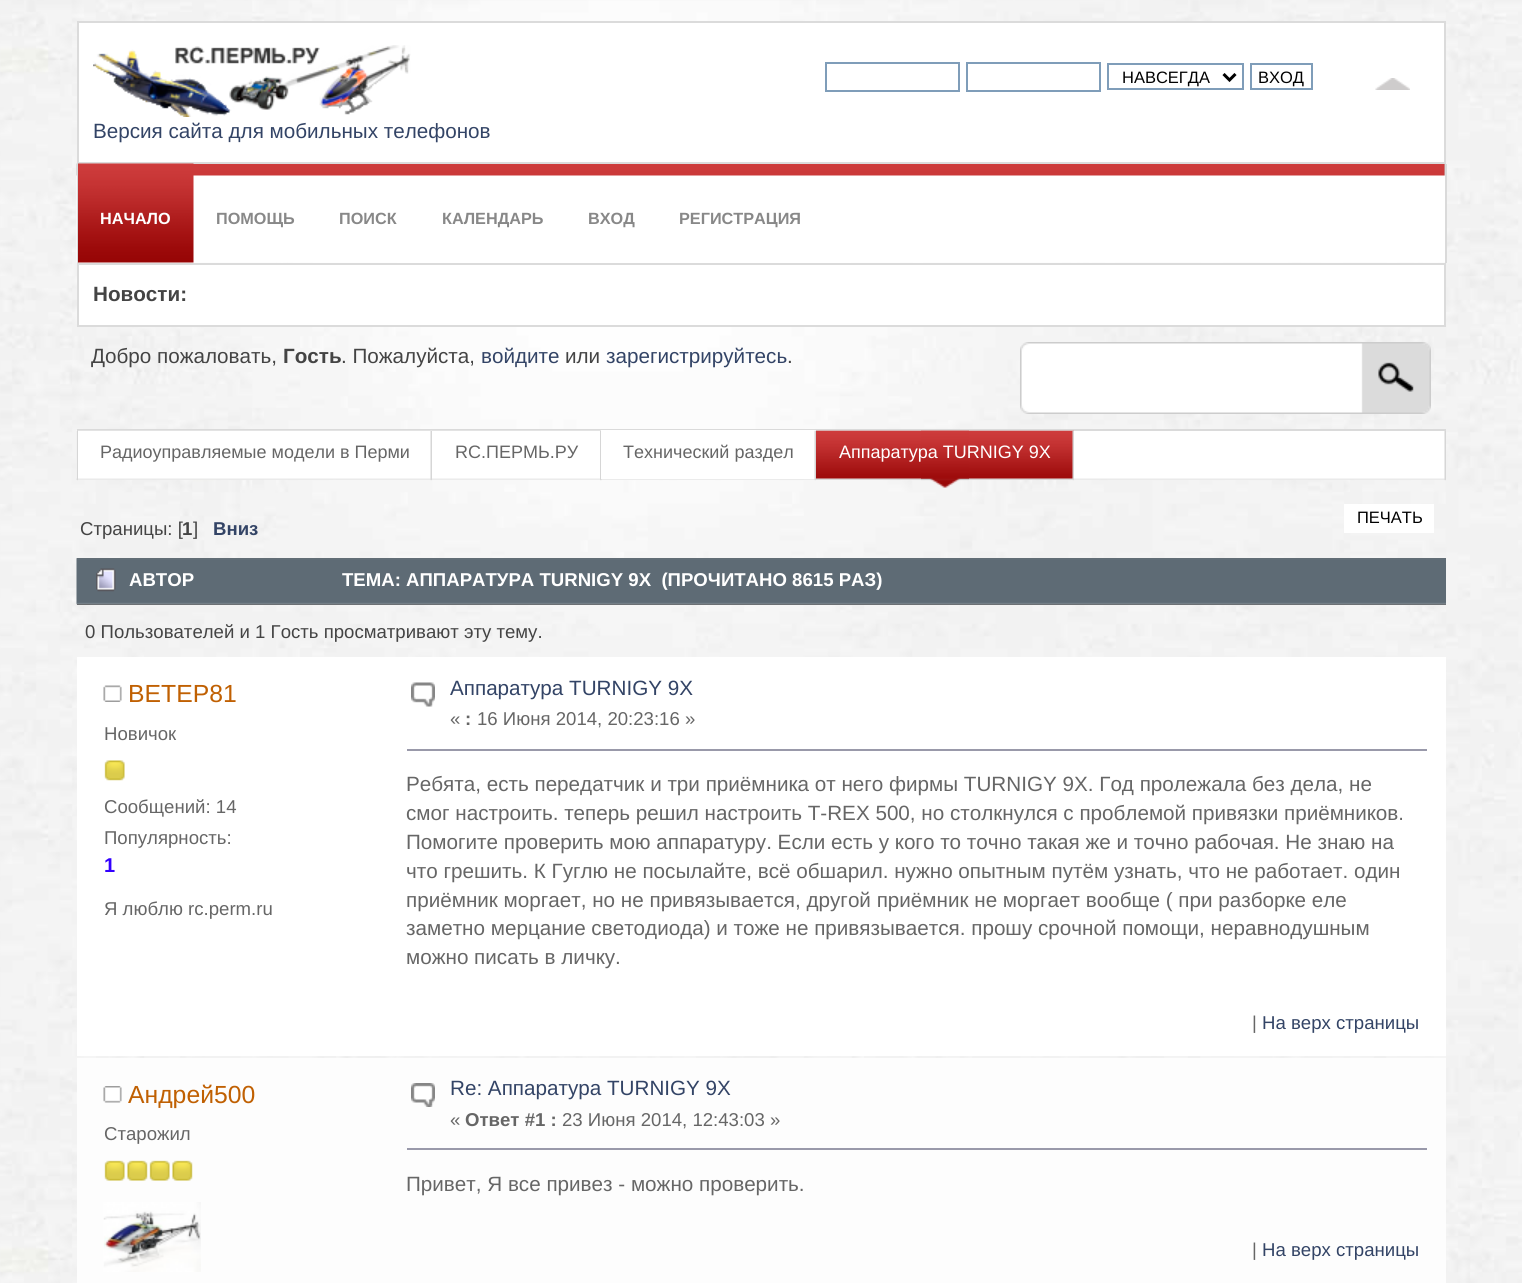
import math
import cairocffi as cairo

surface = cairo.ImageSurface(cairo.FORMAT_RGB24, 1522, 1283)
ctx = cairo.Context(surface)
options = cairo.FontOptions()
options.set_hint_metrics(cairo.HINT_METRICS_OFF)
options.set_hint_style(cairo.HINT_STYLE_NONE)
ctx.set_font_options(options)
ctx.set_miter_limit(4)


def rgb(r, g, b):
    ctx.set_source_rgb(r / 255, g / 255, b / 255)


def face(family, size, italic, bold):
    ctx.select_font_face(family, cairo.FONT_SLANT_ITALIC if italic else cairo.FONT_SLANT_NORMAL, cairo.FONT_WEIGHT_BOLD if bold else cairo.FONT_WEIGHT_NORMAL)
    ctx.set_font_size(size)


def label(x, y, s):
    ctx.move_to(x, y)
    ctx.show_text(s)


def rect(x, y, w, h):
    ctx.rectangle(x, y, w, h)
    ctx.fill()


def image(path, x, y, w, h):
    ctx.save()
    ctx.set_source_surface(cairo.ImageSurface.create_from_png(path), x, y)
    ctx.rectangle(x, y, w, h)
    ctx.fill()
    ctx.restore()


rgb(255, 255, 255)
ctx.paint()
image('image0.png', 0, 0, 1522, 1283)
image('image3.png', 76, 163, 1369, 100)
rgb(255, 255, 255)
ctx.rectangle(78, 22, 1367, 141)
ctx.fill_preserve()
rgb(219, 219, 219)
ctx.stroke()
image('image1.png', 93, 45, 318, 72)
ctx.rectangle(826, 63, 133, 28)
rgb(127, 157, 185)
ctx.stroke()
ctx.rectangle(967, 63, 133, 28)
ctx.stroke()
ctx.rectangle(1108, 64, 135, 25)
ctx.stroke()
ctx.new_path()
ctx.move_to(1223.5, 74)
ctx.line_to(1229.5, 80)
ctx.line_to(1235.5, 74)
rgb(0, 0, 0)
ctx.set_line_width(3)
ctx.stroke()
face('Liberation Sans', 16.5, 0, 0)
label(1122, 83, 'НАВСЕГДА')
ctx.rectangle(1251, 64, 61, 25)
rgb(127, 157, 185)
ctx.set_line_width(2)
ctx.stroke()
rgb(0, 0, 0)
label(1258, 83, 'ВХОД')
image('image2.png', 1375, 78, 35, 12)
face('Liberation Sans', 20.65, 0, 0)
rgb(51, 68, 102)
label(93, 138, 'Версия сайта для мобильных телефонов')
rgb(218, 218, 218)
rect(1445, 164, 2, 99)
rect(77, 164, 2, 99)
image('image4.png', 78, 164, 1367, 99)
image('image5.png', 78, 163, 116, 100)
face('Liberation Sans', 16.25, 0, 1)
rgb(255, 255, 255)
label(100, 224, 'НАЧАЛО')
rgb(136, 136, 136)
label(216, 224, 'ПОМОЩЬ')
label(339, 224, 'ПОИСК')
label(442, 224, 'КАЛЕНДАРЬ')
label(588, 224, 'ВХОД')
label(679, 224, 'РЕГИСТРАЦИЯ')
rgb(255, 255, 255)
ctx.rectangle(78, 264, 1367, 62)
ctx.fill_preserve()
rgb(219, 219, 219)
ctx.stroke()
face('Liberation Sans', 20.65, 0, 1)
rgb(68, 68, 68)
label(93, 301, 'Новости:')
face('Liberation Sans', 20.65, 0, 0)
label(91, 363, 'Добро пожаловать,')
face('Liberation Sans', 20.65, 0, 1)
label(283, 363, 'Гость')
face('Liberation Sans', 20.65, 0, 0)
label(341, 363, '. Пожалуйста,')
rgb(51, 68, 102)
label(481, 363, 'войдите')
rgb(68, 68, 68)
label(565, 363, 'или')
rgb(51, 68, 102)
label(606, 363, 'зарегистрируйтесь')
rgb(68, 68, 68)
label(787, 363, '.')
image('image6.png', 1020, 342, 411, 72)
image('image7.png', 76, 430, 1370, 50)
rgb(218, 218, 218)
rect(77, 429, 1369, 2)
image('image8.png', 76, 431, 2, 50)
image('image9.png', 1444, 431, 2, 50)
rgb(227, 227, 227)
rect(78, 430, 354, 1)
image('image10.png', 430, 431, 2, 50)
face('Liberation Sans', 18, 0, 0)
rgb(102, 102, 102)
label(100, 458, 'Радиоуправляемые модели в Перми')
image('image11.png', 432, 430, 169, 1)
image('image12.png', 600, 431, 2, 50)
label(455, 458, 'RC.ПЕРМЬ.РУ')
rgb(255, 255, 255)
rect(601, 430, 215, 49)
image('image13.png', 814, 430, 2, 51)
rgb(102, 102, 102)
label(623, 458, 'Технический раздел')
image('image14.png', 816, 430, 258, 50)
image('image15.png', 921, 430, 48, 58)
image('image16.png', 1072, 430, 2, 51)
rgb(255, 255, 255)
label(839, 458, 'Аппаратура TURNIGY 9X')
rect(1344, 504, 90, 29)
face('Liberation Sans', 16.5, 0, 0)
rgb(0, 0, 0)
label(1357, 523, 'ПЕЧАТЬ')
face('Liberation Sans', 18.6, 0, 0)
rgb(68, 68, 68)
label(80, 535, 'Страницы: [')
face('Liberation Sans', 18.6, 0, 1)
label(182, 535, '1')
face('Liberation Sans', 18.6, 0, 0)
label(193, 535, ']')
face('Liberation Sans', 18.6, 0, 1)
rgb(51, 68, 102)
label(213, 535, 'Вниз')
rgb(98, 98, 98)
rect(77, 558, 1369, 47)
image('image17.png', 76, 558, 1370, 47)
rgb(108, 112, 116)
rect(90, 604, 1356, 1)
image('image18.png', 96, 568, 20, 24)
rgb(255, 255, 255)
label(129, 586, 'АВТОР')
label(342, 586, 'ТЕМА: АППАРАТУРА TURNIGY 9X  (ПРОЧИТАНО 8615 РАЗ)')
face('Liberation Sans', 18.6, 0, 0)
rgb(68, 68, 68)
label(85, 638, '0 Пользователей и 1 Гость просматривают эту тему.')
rgb(255, 255, 255)
rect(77, 657, 1369, 399)
image('image19.png', 103, 685, 19, 17)
face('Liberation Sans', 24.75, 0, 0)
rgb(192, 96, 2)
label(128, 702, 'BETEP81')
face('Liberation Sans', 18.6, 0, 0)
rgb(102, 102, 102)
label(104, 740, 'Новичок')
image('image20.png', 104, 760, 21, 21)
label(104, 813, 'Сообщений: 14')
label(104, 844, 'Популярность:')
face('Liberation Sans', 20, 0, 1)
rgb(51, 0, 255)
label(104, 872, '1')
face('Liberation Sans', 18.6, 0, 0)
rgb(102, 102, 102)
label(104, 915, 'Я люблю rc.perm.ru')
image('image21.png', 411, 682, 24, 25)
face('Liberation Sans', 20.65, 0, 0)
rgb(51, 68, 102)
label(450, 695, 'Аппаратура TURNIGY 9X')
face('Liberation Sans', 18.6, 0, 0)
rgb(102, 102, 102)
label(450, 725, '«')
face('Liberation Sans', 18.6, 0, 1)
label(465, 725, ':')
face('Liberation Sans', 18.6, 0, 0)
label(477, 725, '16 Июня 2014, 20:23:16 »')
rgb(153, 153, 170)
rect(407, 749, 1020, 2)
face('Liberation Sans', 20.65, 0, 0)
rgb(102, 102, 102)
label(406, 791, 'Ребята, есть передатчик и три приёмника от него фирмы TURNIGY 9X. Год пролежала без дела, не')
label(406, 820, 'смог настроить. теперь решил настроить T-REX 500, но столкнулся с проблемой привязки приёмников.')
label(406, 849, 'Помогите проверить мою аппаратуру. Если есть у кого то точно такая же и точно рабочая. Не знаю на')
label(406, 878, 'что грешить. К Гуглю не посылайте, всё обшарил. нужно опытным путём узнать, что не работает. один')
label(406, 907, 'приёмник моргает, но не привязывается, другой приёмник не моргает вообще ( при разборке еле')
label(406, 935, 'заметно мерцание светодиода) и тоже не привязывается. прошу срочной помощи, неравнодушным')
label(406, 964, 'можно писать в личку.')
face('Liberation Sans', 18.6, 0, 0)
label(1252, 1029, '|')
rgb(51, 68, 102)
label(1262, 1029, 'На верх страницы')
rgb(253, 253, 253)
rect(77, 1058, 1369, 225)
image('image22.png', 103, 1086, 19, 17)
face('Liberation Sans', 24.75, 0, 0)
rgb(192, 96, 2)
label(128, 1103, 'Андрей500')
face('Liberation Sans', 18.6, 0, 0)
rgb(102, 102, 102)
label(104, 1140, 'Старожил')
image('image23.png', 104, 1160, 21, 21)
image('image24.png', 127, 1160, 21, 21)
image('image23.png', 149, 1160, 21, 21)
image('image24.png', 172, 1160, 21, 21)
image('image25.png', 103, 1202, 98, 70)
image('image26.png', 411, 1083, 24, 24)
face('Liberation Sans', 20.65, 0, 0)
rgb(51, 68, 102)
label(450, 1095, 'Re: Аппаратура TURNIGY 9X')
face('Liberation Sans', 18.6, 0, 0)
rgb(102, 102, 102)
label(450, 1126, '«')
face('Liberation Sans', 18.6, 0, 1)
label(465, 1126, 'Ответ #1 :')
face('Liberation Sans', 18.6, 0, 0)
label(562, 1126, '23 Июня 2014, 12:43:03 »')
rgb(153, 153, 170)
rect(407, 1148, 1020, 2)
face('Liberation Sans', 20.65, 0, 0)
rgb(102, 102, 102)
label(406, 1191, 'Привет, Я все привез - можно проверить.')
face('Liberation Sans', 18.6, 0, 0)
label(1252, 1256, '|')
rgb(51, 68, 102)
label(1262, 1256, 'На верх страницы')
surface.write_to_png('render.png')
